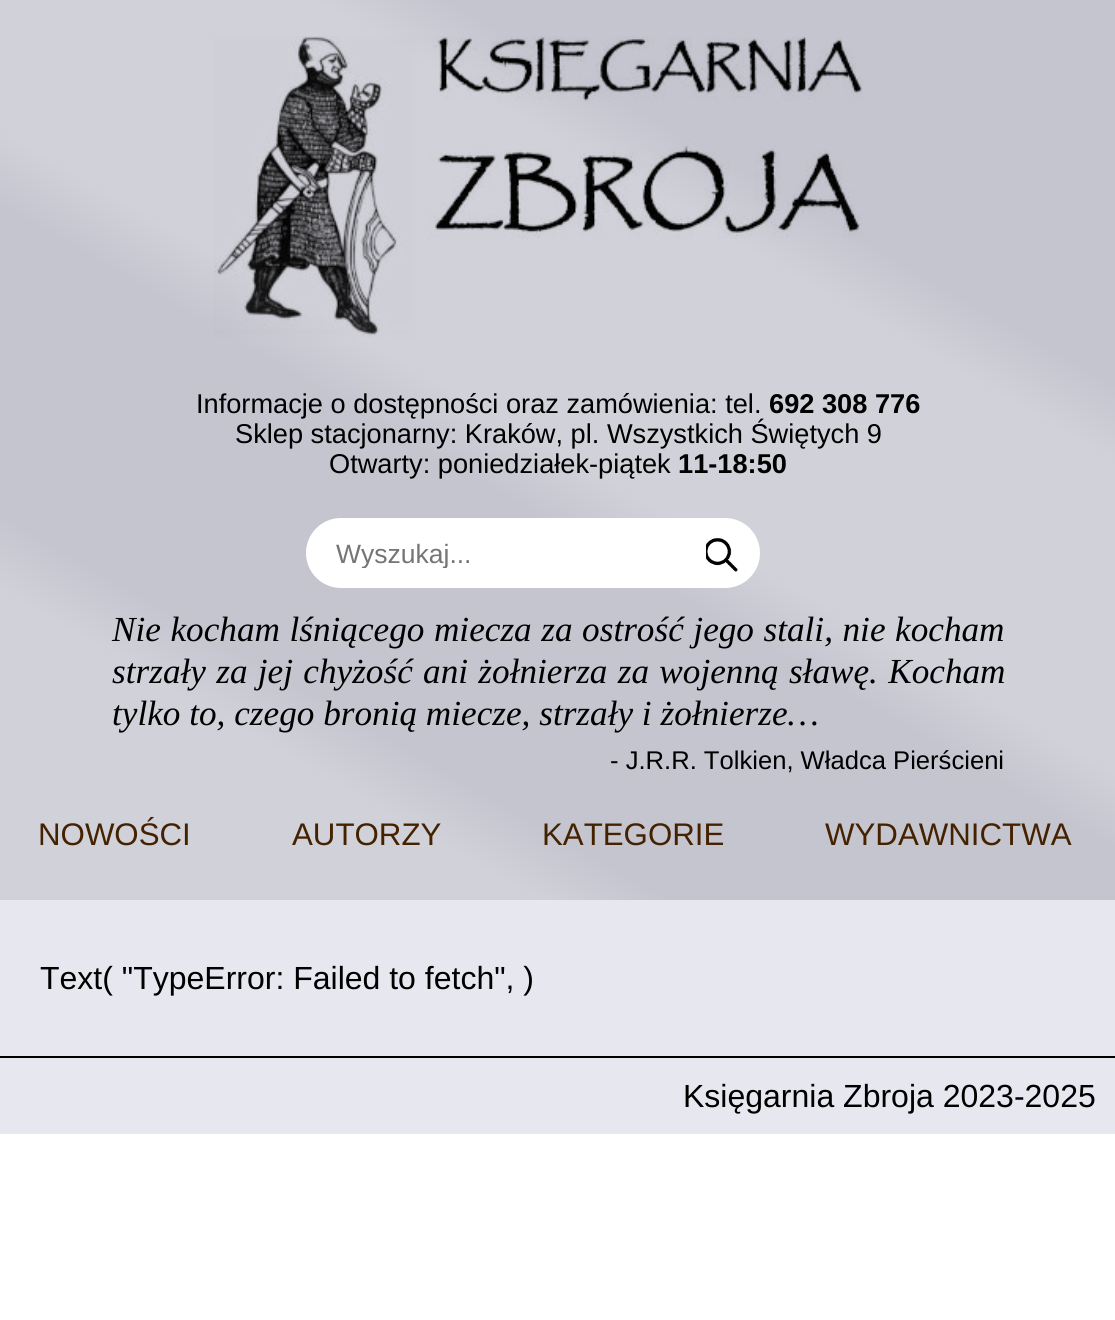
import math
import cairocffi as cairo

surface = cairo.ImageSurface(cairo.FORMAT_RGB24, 1115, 1320)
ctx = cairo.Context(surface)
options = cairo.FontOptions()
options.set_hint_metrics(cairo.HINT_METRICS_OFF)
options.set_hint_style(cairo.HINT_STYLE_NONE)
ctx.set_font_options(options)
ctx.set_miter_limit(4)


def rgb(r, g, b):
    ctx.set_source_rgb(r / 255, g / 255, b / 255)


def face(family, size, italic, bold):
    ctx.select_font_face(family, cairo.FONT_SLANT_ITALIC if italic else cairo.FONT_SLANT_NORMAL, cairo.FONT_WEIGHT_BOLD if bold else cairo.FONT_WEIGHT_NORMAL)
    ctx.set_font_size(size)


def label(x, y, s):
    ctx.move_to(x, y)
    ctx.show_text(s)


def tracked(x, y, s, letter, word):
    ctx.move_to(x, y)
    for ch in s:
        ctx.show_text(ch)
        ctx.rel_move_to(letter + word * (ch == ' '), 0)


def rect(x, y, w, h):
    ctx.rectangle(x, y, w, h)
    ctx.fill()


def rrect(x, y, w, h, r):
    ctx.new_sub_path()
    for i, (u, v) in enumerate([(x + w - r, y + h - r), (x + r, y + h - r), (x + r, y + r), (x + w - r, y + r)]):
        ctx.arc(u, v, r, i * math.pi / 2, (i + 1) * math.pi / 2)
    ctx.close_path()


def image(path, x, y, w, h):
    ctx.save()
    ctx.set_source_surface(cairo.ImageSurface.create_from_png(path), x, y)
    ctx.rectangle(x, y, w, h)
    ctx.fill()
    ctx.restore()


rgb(255, 255, 255)
ctx.paint()
rgb(231, 231, 239)
rect(0, 900, 1115, 234)
gradient = cairo.LinearGradient(224, 1029, 892, -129)
gradient.add_color_stop_rgba(0.2, 0.82, 0.82, 0.851, 1)
gradient.add_color_stop_rgba(0.25, 0.773, 0.773, 0.816, 1)
gradient.add_color_stop_rgba(0.45, 0.773, 0.773, 0.816, 1)
gradient.add_color_stop_rgba(0.5, 0.82, 0.82, 0.851, 1)
gradient.add_color_stop_rgba(0.7, 0.82, 0.82, 0.851, 1)
gradient.add_color_stop_rgba(0.75, 0.773, 0.773, 0.816, 1)
gradient.add_color_stop_rgba(1, 0.773, 0.773, 0.816, 1)
ctx.set_source(gradient)
rect(0, 0, 1115, 900)
image('image0.png', 213, 36, 650, 302)
face('Liberation Sans', 27.2, 0, 0)
rgb(0, 0, 0)
label(196, 413, 'Informacje o dostępności oraz zamówienia: tel.')
face('Liberation Sans', 27.2, 0, 1)
label(769, 413, '692 308 776')
face('Liberation Sans', 27.2, 0, 0)
label(235, 443, 'Sklep stacjonarny: Kraków, pl. Wszystkich Świętych 9')
label(329, 473, 'Otwarty: poniedziałek-piątek')
face('Liberation Sans', 27.2, 0, 1)
label(678, 473, '11-18:50')
rgb(255, 255, 255)
rrect(306, 518, 454, 70, 35)
ctx.fill()
ctx.save()
ctx.rectangle(336, 538, 328, 30)
ctx.clip()
face('Liberation Sans', 26.5, 0, 0)
rgb(117, 117, 117)
label(336, 563, 'Wyszukaj...')
ctx.restore()
image('image1.png', 706, 538, 32, 34)
face('Liberation Serif', 35.2, 1, 0)
rgb(0, 0, 0)
tracked(112, 641, 'Nie kocham lśniącego miecza za ostrość jego stali, nie kocham', 0, 0.75)
tracked(112, 683, 'strzały za jej chyżość ani żołnierza za wojenną sławę. Kocham', 0, 1.5)
label(112, 725, 'tylko to, czego bronią miecze, strzały i żołnierze…')
face('Liberation Sans', 25.6, 0, 0)
label(610, 769, '- J.R.R. Tolkien, Władca Pierścieni')
face('Liberation Sans', 31.25, 0, 0)
rgb(68, 34, 0)
label(38, 845, 'NOWOŚCI')
label(292, 845, 'AUTORZY')
label(542, 845, 'KATEGORIE')
label(825, 845, 'WYDAWNICTWA')
face('Liberation Sans', 32, 0, 0)
rgb(0, 0, 0)
label(40, 989, 'Text( "TypeError: Failed to fetch", )')
rect(0, 1056, 1115, 2)
label(683, 1107, 'Księgarnia Zbroja 2023-2025')
surface.write_to_png('render.png')
